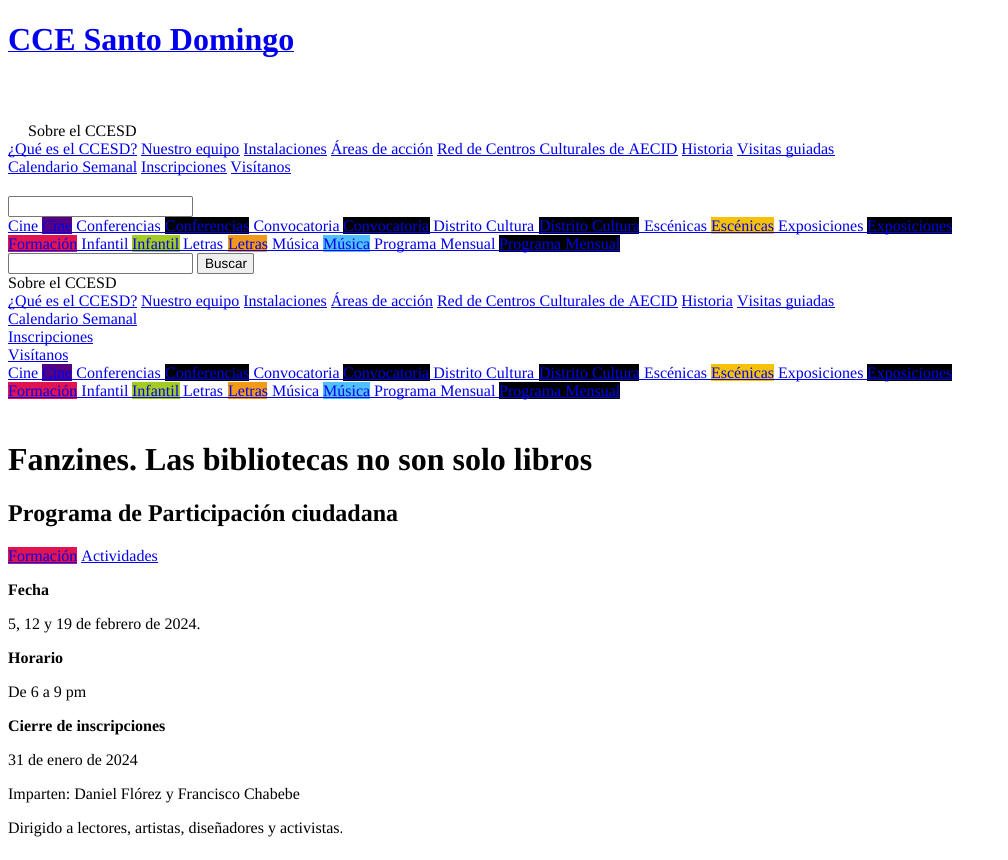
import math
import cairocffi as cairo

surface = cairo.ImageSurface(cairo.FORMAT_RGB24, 1008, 860)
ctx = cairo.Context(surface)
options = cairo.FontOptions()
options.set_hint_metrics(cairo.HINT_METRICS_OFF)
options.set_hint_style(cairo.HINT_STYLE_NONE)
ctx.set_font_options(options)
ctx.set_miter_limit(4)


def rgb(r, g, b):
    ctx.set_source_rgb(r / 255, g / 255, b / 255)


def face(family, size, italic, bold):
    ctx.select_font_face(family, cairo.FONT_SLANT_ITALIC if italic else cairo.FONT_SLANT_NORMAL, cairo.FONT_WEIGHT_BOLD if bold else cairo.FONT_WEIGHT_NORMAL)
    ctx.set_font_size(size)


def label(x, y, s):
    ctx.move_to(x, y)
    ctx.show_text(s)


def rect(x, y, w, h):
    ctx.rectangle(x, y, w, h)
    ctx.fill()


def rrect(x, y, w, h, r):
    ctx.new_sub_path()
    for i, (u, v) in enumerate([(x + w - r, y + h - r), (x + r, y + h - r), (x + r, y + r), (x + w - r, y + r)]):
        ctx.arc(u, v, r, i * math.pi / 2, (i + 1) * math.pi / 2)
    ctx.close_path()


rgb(255, 255, 255)
ctx.paint()
rgb(0, 0, 238)
rect(8, 51, 286, 1)
face('Liberation Serif', 32, 0, 1)
label(8, 50, 'CCE Santo Domingo')
face('Liberation Serif', 16, 0, 0)
rgb(0, 0, 0)
label(28, 136, 'Sobre el CCESD')
rgb(0, 0, 238)
rect(8, 155, 129, 1)
label(8, 154, '¿Qué es el CCESD?')
rect(141, 155, 99, 1)
label(141, 154, 'Nuestro equipo Instalaciones Áreas de acción Red de Centros Culturales de AECID Historia')
rect(737, 155, 98, 1)
label(737, 154, 'Visitas guiadas')
rect(244, 155, 83, 1)
rect(331, 155, 102, 1)
rect(437, 155, 241, 1)
rect(682, 155, 51, 1)
label(8, 172, 'Calendario Semanal')
rect(8, 173, 129, 1)
rect(141, 173, 86, 1)
label(141, 172, 'Inscripciones Visítanos')
rect(231, 173, 60, 1)
rrect(8.5, 196.5, 184, 20, 1.5)
rgb(118, 118, 118)
ctx.set_line_width(1)
ctx.stroke()
rgb(0, 0, 238)
label(8, 231, 'Cine')
rect(8, 232, 34, 1)
rgb(84, 0, 129)
rect(42, 217, 30, 17)
rgb(0, 0, 238)
label(42, 231, 'Cine Conferencias')
rect(42, 232, 123, 1)
rgb(0, 0, 0)
rect(165, 217, 84, 17)
rgb(0, 0, 238)
label(165, 231, 'Conferencias Convocatoria')
rect(165, 232, 178, 1)
rgb(0, 0, 0)
rect(343, 217, 87, 17)
rgb(0, 0, 238)
label(343, 231, 'Convocatoria Distrito Cultura')
rect(343, 232, 196, 1)
rgb(0, 0, 0)
rect(539, 217, 100, 17)
rgb(0, 0, 238)
label(539, 231, 'Distrito Cultura Escénicas')
rect(539, 232, 172, 1)
rgb(245, 193, 9)
rect(711, 217, 63, 17)
rgb(0, 0, 238)
rect(711, 232, 156, 1)
label(711, 231, 'Escénicas Exposiciones')
rgb(0, 0, 0)
rect(867, 217, 85, 17)
rgb(0, 0, 238)
rect(867, 232, 85, 1)
label(867, 231, 'Exposiciones')
rgb(224, 20, 81)
rect(8, 235, 69, 17)
rgb(0, 0, 238)
label(8, 249, 'Formación Infantil')
rect(8, 250, 124, 1)
rgb(164, 203, 34)
rect(132, 235, 48, 17)
rgb(0, 0, 238)
label(132, 249, 'Infantil Letras')
rect(132, 250, 96, 1)
rgb(243, 153, 24)
rect(228, 235, 39, 17)
rgb(0, 0, 238)
label(228, 249, 'Letras Música')
rect(228, 250, 95, 1)
rgb(79, 192, 253)
rect(323, 235, 47, 17)
rgb(0, 0, 238)
rect(323, 250, 176, 1)
label(323, 249, 'Música Programa Mensual')
rgb(0, 0, 0)
rect(499, 235, 121, 17)
rgb(0, 0, 238)
rect(499, 250, 121, 1)
label(499, 249, 'Programa Mensual')
rrect(8.5, 253.5, 184, 20, 1.5)
rgb(118, 118, 118)
ctx.stroke()
rgb(239, 239, 239)
rrect(197.5, 253.5, 56, 20, 1.5)
ctx.fill_preserve()
rgb(118, 118, 118)
ctx.stroke()
face('Liberation Sans', 13.5, 0, 0)
rgb(0, 0, 0)
label(205, 268, 'Buscar')
face('Liberation Serif', 16, 0, 0)
label(8, 288, 'Sobre el CCESD')
rgb(0, 0, 238)
rect(8, 307, 129, 1)
label(8, 306, '¿Qué es el CCESD?')
rect(141, 307, 99, 1)
label(141, 306, 'Nuestro equipo Instalaciones Áreas de acción Red de Centros Culturales de AECID Historia')
rect(737, 307, 98, 1)
label(737, 306, 'Visitas guiadas')
rect(244, 307, 83, 1)
rect(331, 307, 102, 1)
rect(437, 307, 241, 1)
rect(682, 307, 51, 1)
label(8, 324, 'Calendario Semanal')
rect(8, 325, 129, 1)
rect(8, 343, 85, 1)
label(8, 342, 'Inscripciones')
label(8, 360, 'Visítanos')
rect(8, 361, 60, 1)
label(8, 378, 'Cine')
rect(8, 379, 34, 1)
rgb(84, 0, 129)
rect(42, 364, 30, 17)
rgb(0, 0, 238)
label(42, 378, 'Cine Conferencias')
rect(42, 379, 123, 1)
rgb(0, 0, 0)
rect(165, 364, 84, 17)
rgb(0, 0, 238)
label(165, 378, 'Conferencias Convocatoria')
rect(165, 379, 178, 1)
rgb(0, 0, 0)
rect(343, 364, 87, 17)
rgb(0, 0, 238)
label(343, 378, 'Convocatoria Distrito Cultura')
rect(343, 379, 196, 1)
rgb(0, 0, 0)
rect(539, 364, 100, 17)
rgb(0, 0, 238)
label(539, 378, 'Distrito Cultura Escénicas')
rect(539, 379, 172, 1)
rgb(245, 193, 9)
rect(711, 364, 63, 17)
rgb(0, 0, 238)
rect(711, 379, 156, 1)
label(711, 378, 'Escénicas Exposiciones')
rgb(0, 0, 0)
rect(867, 364, 85, 17)
rgb(0, 0, 238)
rect(867, 379, 85, 1)
label(867, 378, 'Exposiciones')
rgb(224, 20, 81)
rect(8, 382, 69, 17)
rgb(0, 0, 238)
label(8, 396, 'Formación Infantil')
rect(8, 397, 124, 1)
rgb(164, 203, 34)
rect(132, 382, 48, 17)
rgb(0, 0, 238)
label(132, 396, 'Infantil Letras')
rect(132, 397, 96, 1)
rgb(243, 153, 24)
rect(228, 382, 39, 17)
rgb(0, 0, 238)
label(228, 396, 'Letras Música')
rect(228, 397, 95, 1)
rgb(79, 192, 253)
rect(323, 382, 47, 17)
rgb(0, 0, 238)
rect(323, 397, 176, 1)
label(323, 396, 'Música Programa Mensual')
rgb(0, 0, 0)
rect(499, 382, 121, 17)
rgb(0, 0, 238)
rect(499, 397, 121, 1)
label(499, 396, 'Programa Mensual')
face('Liberation Serif', 32, 0, 1)
rgb(0, 0, 0)
label(8, 470, 'Fanzines. Las bibliotecas no son solo libros')
face('Liberation Serif', 24, 0, 1)
label(8, 521, 'Programa de Participación ciudadana')
rgb(224, 20, 81)
rect(8, 547, 69, 17)
face('Liberation Serif', 16, 0, 0)
rgb(0, 0, 238)
label(8, 561, 'Formación Actividades')
rect(8, 562, 69, 1)
rect(81, 562, 77, 1)
face('Liberation Serif', 16, 0, 1)
rgb(0, 0, 0)
label(8, 595, 'Fecha')
face('Liberation Serif', 16, 0, 0)
label(8, 629, '5, 12 y 19 de febrero de 2024.')
face('Liberation Serif', 16, 0, 1)
label(8, 663, 'Horario')
face('Liberation Serif', 16, 0, 0)
label(8, 697, 'De 6 a 9 pm')
face('Liberation Serif', 16, 0, 1)
label(8, 731, 'Cierre de inscripciones')
face('Liberation Serif', 16, 0, 0)
label(8, 765, '31 de enero de 2024')
label(8, 799, 'Imparten: Daniel Flórez y Francisco Chabebe')
label(8, 833, 'Dirigido a lectores, artistas, diseñadores y activistas.')
surface.write_to_png('render.png')
